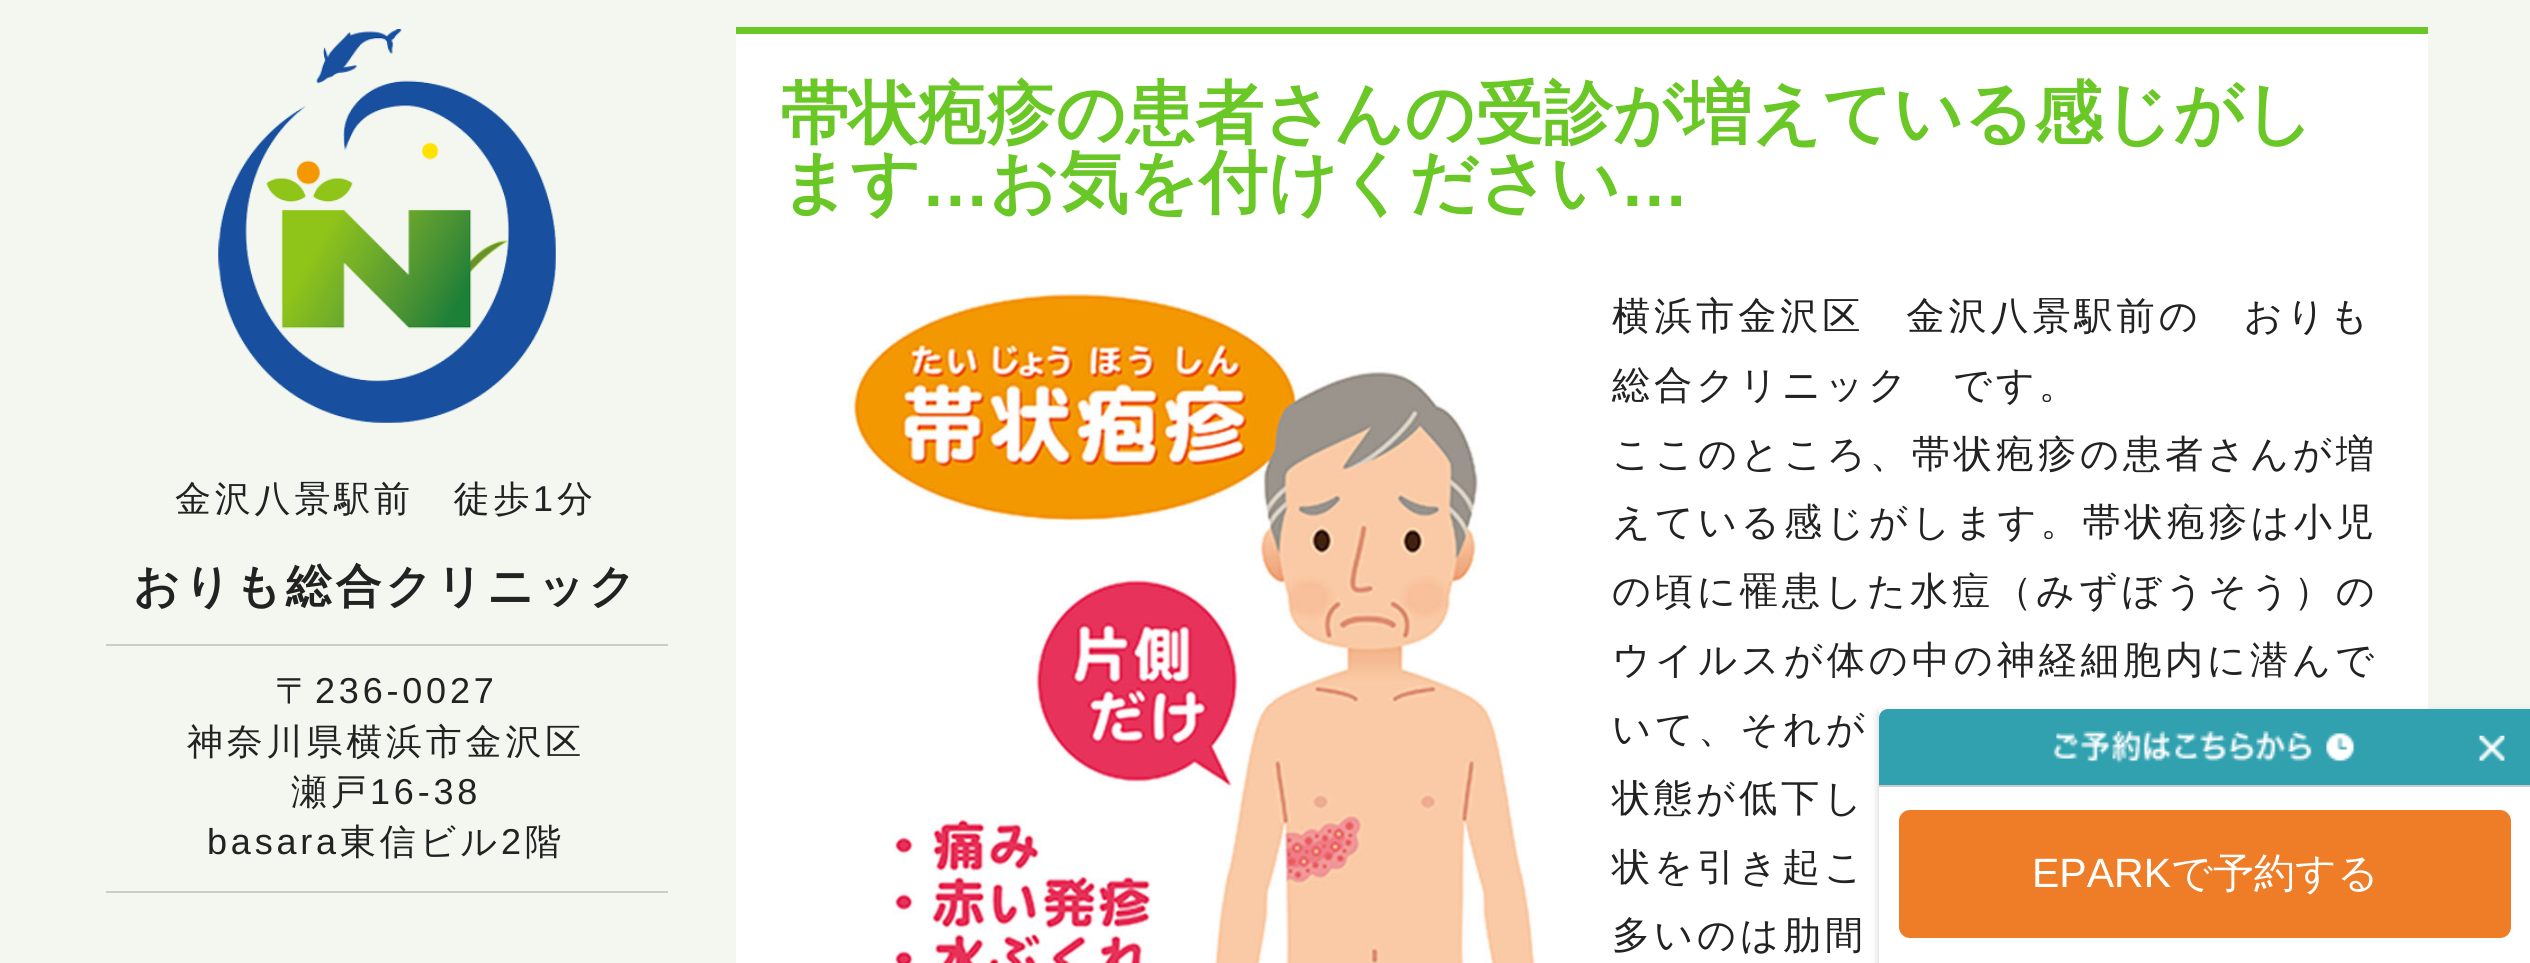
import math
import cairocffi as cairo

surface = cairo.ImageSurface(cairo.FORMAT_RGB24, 2530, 963)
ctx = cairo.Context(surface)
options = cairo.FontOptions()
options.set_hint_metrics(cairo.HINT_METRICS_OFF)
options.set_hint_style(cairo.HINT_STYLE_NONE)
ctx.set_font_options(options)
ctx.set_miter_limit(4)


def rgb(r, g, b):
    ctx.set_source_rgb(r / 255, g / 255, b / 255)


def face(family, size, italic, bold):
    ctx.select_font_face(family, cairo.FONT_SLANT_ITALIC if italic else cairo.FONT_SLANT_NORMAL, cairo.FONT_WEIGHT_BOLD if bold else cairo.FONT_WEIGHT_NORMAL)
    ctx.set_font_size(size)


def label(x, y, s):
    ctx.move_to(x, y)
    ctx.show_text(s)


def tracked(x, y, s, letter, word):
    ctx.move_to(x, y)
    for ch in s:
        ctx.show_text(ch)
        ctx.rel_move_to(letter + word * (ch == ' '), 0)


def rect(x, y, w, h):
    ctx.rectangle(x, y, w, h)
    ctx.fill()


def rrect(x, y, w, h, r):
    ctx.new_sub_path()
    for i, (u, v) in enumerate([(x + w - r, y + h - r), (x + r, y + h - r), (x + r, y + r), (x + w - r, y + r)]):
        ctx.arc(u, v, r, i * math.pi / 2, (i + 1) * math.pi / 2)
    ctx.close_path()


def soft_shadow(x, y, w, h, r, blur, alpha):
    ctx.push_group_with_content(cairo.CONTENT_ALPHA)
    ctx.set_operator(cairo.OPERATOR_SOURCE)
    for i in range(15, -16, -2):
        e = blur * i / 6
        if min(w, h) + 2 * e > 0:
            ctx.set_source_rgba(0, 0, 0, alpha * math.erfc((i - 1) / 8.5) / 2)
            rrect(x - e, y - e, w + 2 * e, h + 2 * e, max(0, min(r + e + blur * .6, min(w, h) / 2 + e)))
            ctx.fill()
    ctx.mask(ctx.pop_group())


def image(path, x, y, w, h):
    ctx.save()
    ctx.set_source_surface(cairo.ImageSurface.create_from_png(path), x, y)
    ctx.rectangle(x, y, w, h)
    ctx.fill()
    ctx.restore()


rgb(243, 247, 240)
ctx.paint()
rgb(255, 255, 255)
rect(736, 34, 1692, 929)
rgb(105, 199, 38)
rect(736, 27, 1692, 7)
face('WenQuanYi Zen Hei', 68.85, 0, 1)
label(780, 137, '帯状疱疹の患者さんの受診が増えている感じがし')
label(780, 206, 'ます')
face('Liberation Sans', 68.85, 0, 1)
label(921, 206, '…')
face('WenQuanYi Zen Hei', 68.85, 0, 1)
label(989, 206, 'お気を付けください')
face('Liberation Sans', 68.85, 0, 1)
label(1620, 206, '…')
image('image0.png', 848, 291, 688, 672)
face('WenQuanYi Zen Hei Medium', 38.25, 0, 0)
rgb(34, 34, 34)
tracked(1612, 329, '横浜市金沢区　金沢八景駅前の　おりも', 3.8, 0)
tracked(1612, 398, '総合クリニック　です。', 3.8, 0)
tracked(1612, 467, 'ここのところ、帯状疱疹の患者さんが増', 3.8, 0)
tracked(1612, 535, 'えている感じがします。帯状疱疹は小児', 3.8, 0)
tracked(1612, 604, 'の頃に罹患した水痘（みずぼうそう）の', 3.8, 0)
tracked(1612, 673, 'ウイルスが体の中の神経細胞内に潜んで', 3.8, 0)
tracked(1612, 742, 'いて、それが', 3.8, 0)
tracked(1612, 811, '状態が低下し', 3.8, 0)
tracked(1612, 880, '状を引き起こ', 3.8, 0)
tracked(1612, 948, '多いのは肋間', 3.8, 0)
image('image1.png', 218, 29, 338, 394)
face('WenQuanYi Zen Hei Medium', 36, 0, 0)
tracked(175, 511, '金沢八景駅前　徒歩', 3.8, 0)
face('Liberation Sans', 36, 0, 0)
tracked(533, 511, '1', 3.8, 0)
face('WenQuanYi Zen Hei Medium', 36, 0, 0)
tracked(557, 511, '分', 3.8, 0)
face('WenQuanYi Zen Hei', 46, 0, 1)
tracked(133, 602, 'おりも総合クリニック', 3.8, 0)
rgb(204, 204, 204)
rect(106, 644, 562, 2)
face('WenQuanYi Zen Hei Medium', 36, 0, 0)
rgb(34, 34, 34)
tracked(275, 703, '〒', 3.8, 0)
face('Liberation Sans', 36, 0, 0)
tracked(315, 703, '236-0027', 3.8, 0)
face('WenQuanYi Zen Hei Medium', 36, 0, 0)
tracked(187, 754, '神奈川県横浜市金沢区', 3.8, 0)
tracked(291, 804, '瀬戸', 3.8, 0)
face('Liberation Sans', 36, 0, 0)
tracked(370, 804, '16-38', 3.8, 0)
tracked(207, 854, 'basara', 3.8, 0)
face('WenQuanYi Zen Hei Medium', 36, 0, 0)
tracked(340, 854, '東信ビル', 3.8, 0)
face('Liberation Sans', 36, 0, 0)
tracked(501, 854, '2', 3.8, 0)
face('WenQuanYi Zen Hei Medium', 36, 0, 0)
tracked(525, 854, '階', 3.8, 0)
rgb(204, 204, 204)
rect(106, 891, 562, 2)
ctx.save()
ctx.set_fill_rule(cairo.FILL_RULE_EVEN_ODD)
ctx.new_path()
ctx.move_to(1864, 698)
ctx.line_to(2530, 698)
ctx.line_to(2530, 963)
ctx.line_to(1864, 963)
ctx.close_path()
ctx.move_to(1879, 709)
ctx.line_to(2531, 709)
ctx.line_to(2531, 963)
ctx.line_to(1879, 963)
ctx.close_path()
ctx.clip()
rgb(0, 0, 0)
soft_shadow(1879, 713, 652, 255, 0, 4.5, 0.2)
ctx.restore()
rgb(49, 161, 175)
ctx.new_path()
ctx.move_to(1888, 709)
ctx.line_to(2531, 709)
ctx.line_to(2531, 785)
ctx.line_to(1879, 785)
ctx.line_to(1879, 718)
ctx.curve_to(1879, 713, 1883, 709, 1888, 709)
ctx.close_path()
ctx.fill()
image('image2.png', 2478, 735, 27, 26)
image('image3.png', 2053, 731, 302, 32)
rgb(255, 255, 255)
rect(2428, 787, 102, 176)
rgb(204, 204, 204)
rect(1879, 785, 651, 2)
rgb(239, 124, 38)
rrect(1899, 810, 612, 128, 11)
ctx.fill()
face('Liberation Sans', 41, 0, 0)
rgb(255, 255, 255)
label(2032, 887, 'EPARK')
face('WenQuanYi Zen Hei Medium', 41, 0, 0)
label(2171, 887, 'で予約する')
surface.write_to_png('render.png')
